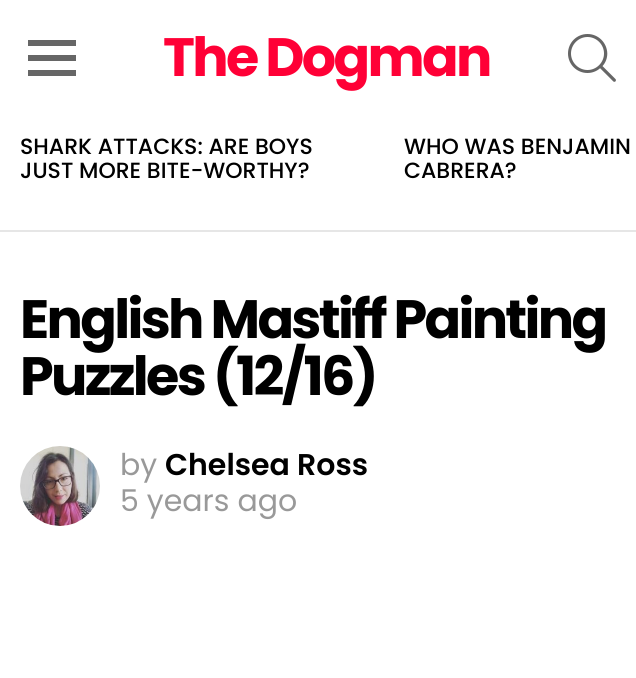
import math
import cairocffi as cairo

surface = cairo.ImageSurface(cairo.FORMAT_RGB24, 636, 678)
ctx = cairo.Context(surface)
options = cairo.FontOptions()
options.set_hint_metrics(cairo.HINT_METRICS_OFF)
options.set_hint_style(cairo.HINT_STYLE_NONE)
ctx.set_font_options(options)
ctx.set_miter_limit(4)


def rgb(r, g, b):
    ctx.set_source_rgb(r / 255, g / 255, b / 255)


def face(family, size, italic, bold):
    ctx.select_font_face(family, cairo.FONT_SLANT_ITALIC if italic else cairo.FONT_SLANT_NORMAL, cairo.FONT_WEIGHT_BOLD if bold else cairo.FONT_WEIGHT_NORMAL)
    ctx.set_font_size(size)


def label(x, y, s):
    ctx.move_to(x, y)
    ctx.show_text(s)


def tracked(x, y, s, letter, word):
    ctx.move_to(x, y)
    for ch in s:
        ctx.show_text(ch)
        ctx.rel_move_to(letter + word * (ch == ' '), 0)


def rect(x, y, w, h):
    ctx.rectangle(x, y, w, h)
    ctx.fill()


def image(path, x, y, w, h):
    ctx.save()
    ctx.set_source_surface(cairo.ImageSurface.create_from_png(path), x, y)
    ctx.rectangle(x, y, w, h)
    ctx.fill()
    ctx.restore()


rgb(255, 255, 255)
ctx.paint()
rgb(102, 102, 102)
ctx.new_path()
ctx.move_to(28, 40)
ctx.line_to(76, 40)
ctx.line_to(76, 46)
ctx.line_to(28, 46)
ctx.close_path()
ctx.move_to(28, 55)
ctx.line_to(76, 55)
ctx.line_to(76, 61)
ctx.line_to(28, 61)
ctx.close_path()
ctx.move_to(28, 70)
ctx.line_to(76, 70)
ctx.line_to(76, 76)
ctx.line_to(28, 76)
ctx.close_path()
ctx.fill()
face('Poppins', 54, 0, 1)
rgb(255, 0, 54)
tracked(163, 76, 'The Dogman', -2.7, 0)
image('image0.png', 568, 34, 48, 48)
rgb(230, 230, 230)
rect(0, 230, 636, 2)
face('Poppins Medium', 22, 0, 0)
rgb(0, 0, 0)
label(20, 154, 'SHARK ATTACKS: ARE BOYS')
label(20, 178, 'JUST MORE BITE-WORTHY?')
label(404, 154, 'WHO WAS BENJAMIN')
label(404, 178, 'CABRERA?')
face('Poppins', 54, 0, 1)
tracked(20, 338, 'English Mastiff Painting', -2.7, 0)
tracked(20, 395, 'Puzzles (12/16)', -2.7, 0)
face('Poppins', 30, 0, 0)
rgb(153, 153, 153)
label(120, 475, 'by')
image('image1.png', 20, 446, 80, 80)
face('Poppins SemiBold', 30, 0, 0)
rgb(0, 0, 0)
label(165, 475, 'Chelsea Ross')
face('Poppins', 30, 0, 0)
rgb(153, 153, 153)
label(120, 511, '5 years ago')
surface.write_to_png('render.png')
